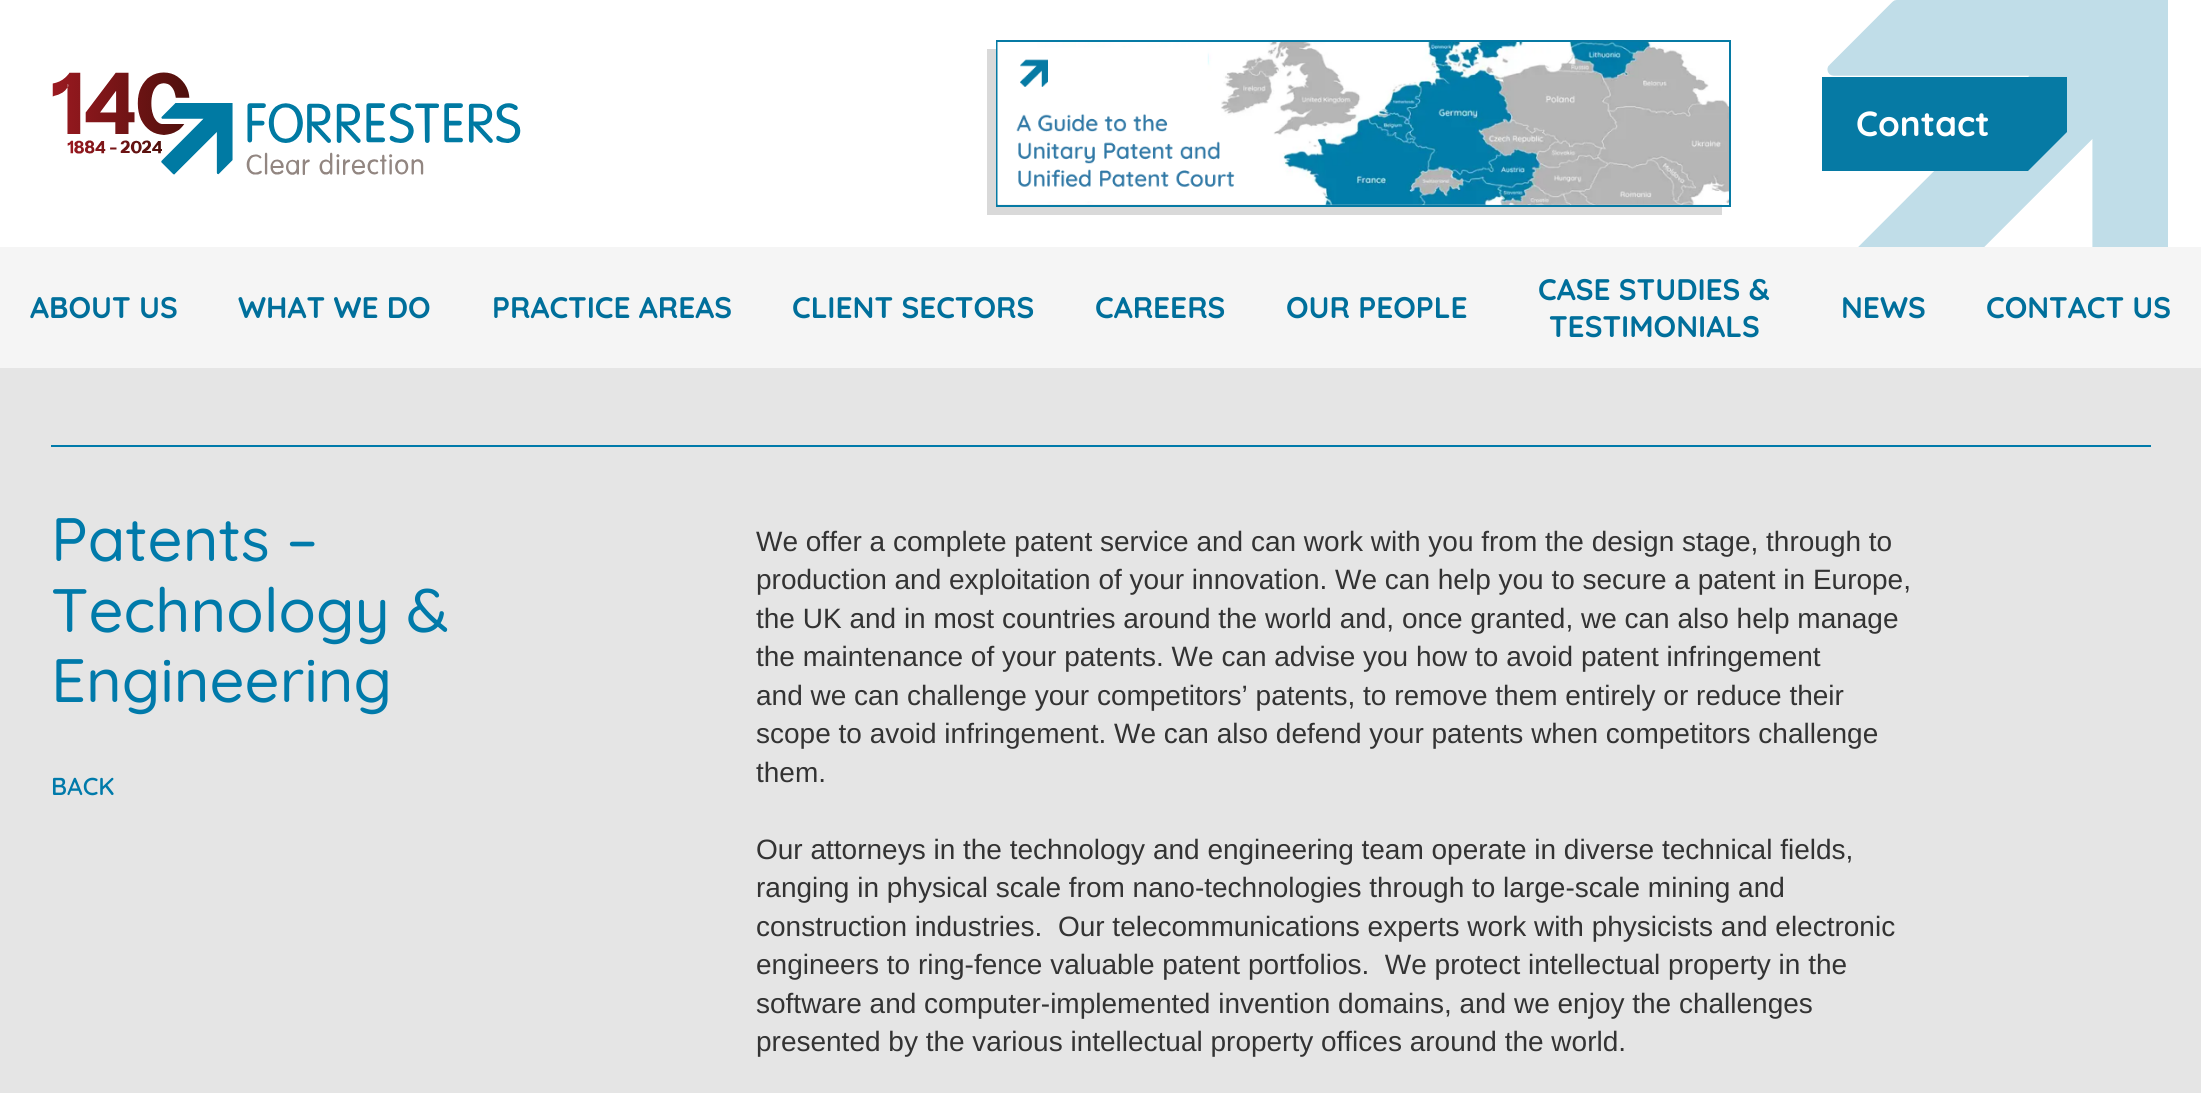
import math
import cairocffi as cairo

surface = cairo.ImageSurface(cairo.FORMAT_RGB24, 2201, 1093)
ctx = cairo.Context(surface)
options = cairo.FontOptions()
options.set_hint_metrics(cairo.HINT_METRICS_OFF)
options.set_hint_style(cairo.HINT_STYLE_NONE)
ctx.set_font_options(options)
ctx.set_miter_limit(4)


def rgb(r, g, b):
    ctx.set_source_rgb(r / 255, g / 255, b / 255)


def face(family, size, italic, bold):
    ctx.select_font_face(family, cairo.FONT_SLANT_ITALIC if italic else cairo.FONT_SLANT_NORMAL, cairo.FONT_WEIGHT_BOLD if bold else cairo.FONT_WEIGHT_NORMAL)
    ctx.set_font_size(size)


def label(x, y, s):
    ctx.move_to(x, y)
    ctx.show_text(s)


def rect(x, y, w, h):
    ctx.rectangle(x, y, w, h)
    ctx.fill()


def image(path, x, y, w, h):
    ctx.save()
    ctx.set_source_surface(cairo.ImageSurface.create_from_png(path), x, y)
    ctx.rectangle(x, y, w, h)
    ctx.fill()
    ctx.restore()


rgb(255, 255, 255)
ctx.paint()
image('image0.png', 1827, 0, 341, 247)
image('image1.png', 52, 72, 469, 103)
rgb(217, 217, 217)
rect(987, 49, 735, 166)
ctx.rectangle(997, 41, 733, 165)
rgb(6, 122, 164)
ctx.stroke()
image('image2.png', 997, 42, 732, 163)
ctx.new_path()
ctx.move_to(1822, 77)
ctx.line_to(2067, 77)
ctx.line_to(2067, 132)
ctx.line_to(2028, 171)
ctx.line_to(1822, 171)
ctx.close_path()
ctx.fill()
face('Quicksand', 35, 0, 1)
rgb(255, 255, 255)
label(1856, 136, 'Contact')
rgb(245, 245, 245)
rect(0, 247, 2201, 121)
face('Quicksand', 29.75, 0, 1)
rgb(0, 111, 155)
label(30, 318, 'ABOUT US')
label(238, 318, 'WHAT WE DO')
label(492, 318, 'PRACTICE AREAS')
label(792, 318, 'CLIENT SECTORS')
label(1095, 318, 'CAREERS')
label(1286, 318, 'OUR PEOPLE')
label(1538, 300, 'CASE STUDIES &')
label(1549, 337, 'TESTIMONIALS')
label(1841, 318, 'NEWS')
label(1986, 318, 'CONTACT US')
rgb(229, 229, 229)
rect(0, 368, 2201, 725)
rgb(0, 122, 170)
rect(51, 445, 2100, 2)
face('Quicksand Medium', 61.25, 0, 0)
label(51, 561, 'Patents –')
label(51, 632, 'Technology &')
label(51, 702, 'Engineering')
face('Quicksand SemiBold', 24.5, 0, 0)
label(51, 795, 'BACK')
face('Liberation Sans', 28, 0, 0)
rgb(51, 51, 51)
label(756, 551, 'We offer a complete patent service and can work with you from the design stage, through to')
label(756, 589, 'production and exploitation of your innovation. We can help you to secure a patent in Europe,')
label(756, 628, 'the UK and in most countries around the world and, once granted, we can also help manage')
label(756, 666, 'the maintenance of your patents. We can advise you how to avoid patent infringement')
label(756, 705, 'and we can challenge your competitors’ patents, to remove them entirely or reduce their')
label(756, 743, 'scope to avoid infringement. We can also defend your patents when competitors challenge')
label(756, 782, 'them.')
label(756, 859, 'Our attorneys in the technology and engineering team operate in diverse technical fields,')
label(756, 897, 'ranging in physical scale from nano-technologies through to large-scale mining and')
label(756, 936, 'construction industries.  Our telecommunications experts work with physicists and electronic')
label(756, 974, 'engineers to ring-fence valuable patent portfolios.  We protect intellectual property in the')
label(756, 1013, 'software and computer-implemented invention domains, and we enjoy the challenges')
label(756, 1051, 'presented by the various intellectual property offices around the world.')
surface.write_to_png('render.png')
